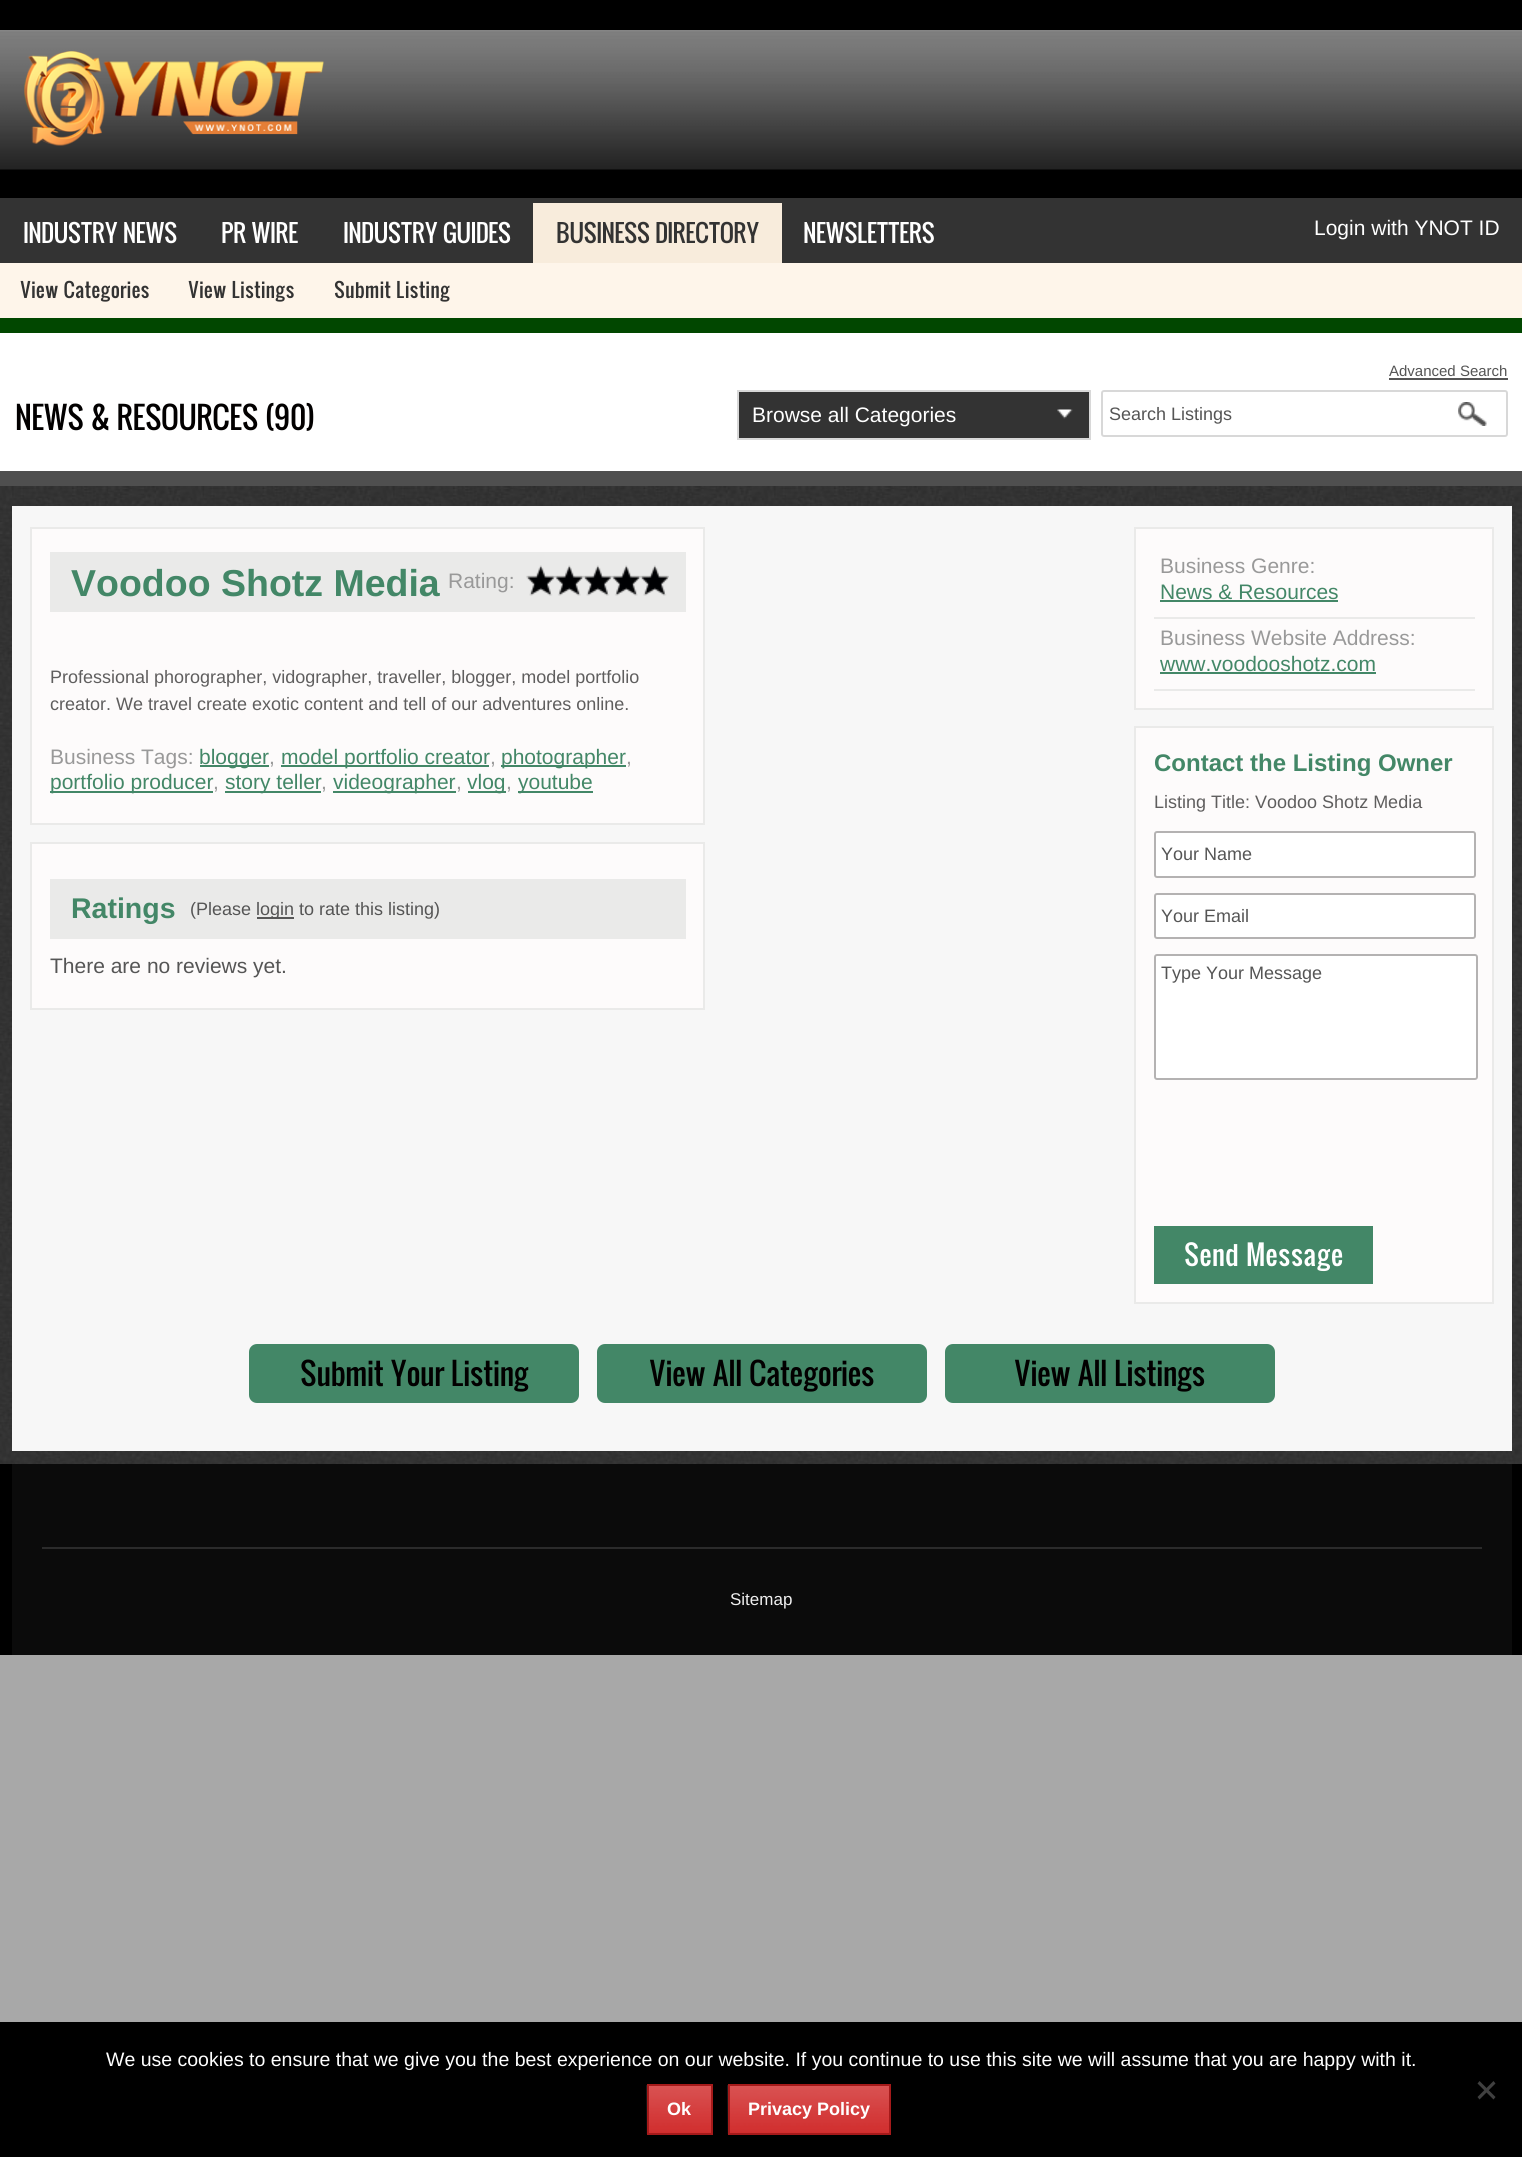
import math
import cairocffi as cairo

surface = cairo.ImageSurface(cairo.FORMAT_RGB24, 1522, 2157)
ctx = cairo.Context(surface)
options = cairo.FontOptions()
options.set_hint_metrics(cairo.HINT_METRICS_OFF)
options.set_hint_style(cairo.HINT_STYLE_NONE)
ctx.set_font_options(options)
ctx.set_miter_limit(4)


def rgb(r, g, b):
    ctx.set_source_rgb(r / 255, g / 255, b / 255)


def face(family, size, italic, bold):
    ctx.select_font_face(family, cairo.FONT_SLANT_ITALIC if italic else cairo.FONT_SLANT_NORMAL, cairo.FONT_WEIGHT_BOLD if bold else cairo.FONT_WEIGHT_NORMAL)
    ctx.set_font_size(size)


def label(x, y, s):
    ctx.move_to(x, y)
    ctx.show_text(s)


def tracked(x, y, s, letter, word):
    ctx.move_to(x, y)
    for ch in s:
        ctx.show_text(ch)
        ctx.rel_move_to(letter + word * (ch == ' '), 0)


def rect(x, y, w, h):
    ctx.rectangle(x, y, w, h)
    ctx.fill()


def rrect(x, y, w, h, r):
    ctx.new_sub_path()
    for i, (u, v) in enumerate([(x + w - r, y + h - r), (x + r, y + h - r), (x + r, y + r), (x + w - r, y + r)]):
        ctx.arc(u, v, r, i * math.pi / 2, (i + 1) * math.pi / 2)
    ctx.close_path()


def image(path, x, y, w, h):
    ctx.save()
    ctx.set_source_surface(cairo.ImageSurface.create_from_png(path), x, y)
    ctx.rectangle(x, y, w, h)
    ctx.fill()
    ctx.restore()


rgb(168, 168, 168)
ctx.paint()
rgb(0, 0, 0)
rect(0, 0, 1522, 1655)
image('image0.png', 0, 30, 1522, 140)
image('image1.png', 24, 51, 300, 95)
rgb(51, 51, 51)
rect(0, 198, 1522, 65)
rgb(1, 71, 0)
rect(0, 318, 1522, 15)
rgb(248, 236, 220)
rect(533, 203, 249, 60)
face('Oswald', 24, 0, 0)
rgb(51, 51, 51)
tracked(556, 243, 'BUSINESS DIRECTORY', -0.75, 0)
rgb(254, 245, 234)
rect(0, 263, 1522, 55)
face('Oswald', 19.5, 0, 0)
rgb(51, 51, 51)
label(20, 298, 'View Categories')
label(188, 298, 'View Listings')
label(334, 298, 'Submit Listing')
face('Oswald', 24, 0, 0)
rgb(255, 255, 255)
tracked(23, 243, 'INDUSTRY NEWS', -0.75, 0)
tracked(221, 243, 'PR WIRE', -0.75, 0)
tracked(343, 243, 'INDUSTRY GUIDES', -0.75, 0)
tracked(803, 243, 'NEWSLETTERS', -0.75, 0)
face('Liberation Sans', 21, 0, 0)
label(1314, 235, 'Login with YNOT ID')
rect(0, 333, 1522, 138)
face('Oswald', 30, 0, 0)
rgb(2, 0, 0)
tracked(15, 430, 'NEWS & RESOURCES (90)', -0.75, 0)
face('Liberation Sans', 15, 0, 0)
rgb(85, 85, 85)
label(1389, 376, 'Advanced Search')
rect(1389, 378, 119, 2)
rgb(51, 51, 51)
ctx.rectangle(738, 391, 352, 48)
ctx.fill_preserve()
rgb(216, 216, 216)
ctx.stroke()
image('image2.png', 1057, 409, 16, 10)
face('Liberation Sans', 21, 0, 0)
rgb(255, 255, 255)
label(752, 422, 'Browse all Categories')
rrect(1102, 391, 405, 45, 2)
rgb(216, 216, 216)
ctx.stroke()
face('Liberation Sans', 18, 0, 0)
rgb(85, 85, 85)
label(1109, 420, 'Search Listings')
image('image3.png', 1458, 402, 29, 24)
image('image4.png', 0, 486, 1522, 978)
rgb(79, 79, 79)
rect(0, 471, 1522, 15)
rgb(247, 247, 247)
rect(12, 506, 1500, 945)
rgb(253, 251, 251)
ctx.rectangle(31, 528, 673, 296)
ctx.fill_preserve()
rgb(234, 234, 233)
ctx.stroke()
rect(50, 552, 636, 60)
face('Liberation Sans', 37.5, 0, 1)
rgb(67, 135, 103)
label(71, 596, 'Voodoo Shotz Media')
face('Liberation Sans', 21, 0, 0)
rgb(153, 153, 153)
label(448, 588, 'Rating:')
image('image5.png', 526, 565, 29, 31)
image('image6.png', 555, 565, 29, 31)
image('image7.png', 583, 565, 29, 31)
image('image6.png', 612, 565, 29, 31)
image('image7.png', 640, 565, 29, 31)
face('Liberation Sans', 18, 0, 0)
rgb(95, 94, 94)
label(50, 683, 'Professional phorographer, vidographer, traveller, blogger, model portfolio')
label(50, 710, 'creator. We travel create exotic content and tell of our adventures online.')
face('Liberation Sans', 21, 0, 0)
rgb(153, 153, 153)
label(50, 764, 'Business Tags:')
rgb(67, 135, 103)
rect(200, 765, 69, 2)
label(199, 764, 'blogger')
rgb(153, 153, 153)
label(269, 764, ',')
rgb(67, 135, 103)
rect(281, 765, 208, 2)
label(281, 764, 'model portfolio creator')
rgb(153, 153, 153)
label(490, 764, ',')
rgb(67, 135, 103)
rect(501, 765, 125, 2)
label(501, 764, 'photographer')
rgb(153, 153, 153)
label(626, 764, ',')
rgb(67, 135, 103)
rect(50, 791, 163, 2)
label(50, 789, 'portfolio producer')
rgb(153, 153, 153)
label(213, 789, ',')
rgb(67, 135, 103)
rect(225, 791, 96, 2)
label(225, 789, 'story teller')
rgb(153, 153, 153)
label(321, 789, ',')
rgb(67, 135, 103)
rect(333, 791, 123, 2)
label(333, 789, 'videographer')
rgb(153, 153, 153)
label(456, 789, ',')
rgb(67, 135, 103)
rect(468, 791, 38, 2)
label(467, 789, 'vlog')
rgb(153, 153, 153)
label(506, 789, ',')
rgb(67, 135, 103)
rect(518, 791, 75, 2)
label(518, 789, 'youtube')
rgb(253, 251, 251)
ctx.rectangle(31, 843, 673, 166)
ctx.fill_preserve()
rgb(234, 234, 233)
ctx.stroke()
rect(50, 879, 636, 60)
face('Liberation Sans', 28.5, 0, 1)
rgb(67, 135, 103)
label(71, 918, 'Ratings')
face('Liberation Sans', 18, 0, 0)
rgb(85, 85, 85)
label(190, 915, '(Please')
rgb(87, 87, 87)
rect(257, 917, 37, 2)
rgb(85, 85, 85)
label(256, 915, 'login to rate this listing)')
face('Liberation Sans', 21, 0, 0)
label(50, 973, 'There are no reviews yet.')
rgb(253, 251, 251)
ctx.rectangle(1135, 528, 358, 181)
ctx.fill_preserve()
rgb(234, 234, 233)
ctx.stroke()
rect(1154, 617, 321, 2)
rgb(153, 153, 153)
label(1160, 573, 'Business Genre:')
rgb(67, 135, 103)
label(1160, 599, 'News & Resources')
rect(1160, 600, 178, 2)
rgb(234, 234, 233)
rect(1154, 689, 321, 2)
rgb(153, 153, 153)
label(1160, 645, 'Business Website Address:')
rgb(67, 135, 103)
label(1160, 671, 'www.voodooshotz.com')
rect(1160, 672, 216, 2)
rgb(253, 251, 251)
ctx.rectangle(1135, 727, 358, 576)
ctx.fill_preserve()
rgb(234, 234, 233)
ctx.stroke()
face('Liberation Sans', 24, 0, 1)
rgb(67, 135, 103)
label(1154, 771, 'Contact the Listing Owner')
face('Liberation Sans', 18, 0, 0)
rgb(95, 94, 94)
label(1154, 808, 'Listing Title: Voodoo Shotz Media')
rgb(255, 255, 255)
rrect(1155, 832, 320, 45, 2)
ctx.fill_preserve()
rgb(180, 178, 178)
ctx.stroke()
rgb(85, 85, 85)
label(1161, 860, 'Your Name')
rgb(255, 255, 255)
rrect(1155, 894, 320, 44, 2)
ctx.fill_preserve()
rgb(180, 178, 178)
ctx.stroke()
rgb(85, 85, 85)
label(1161, 922, 'Your Email')
rgb(255, 255, 255)
rrect(1155, 955, 322, 124, 2)
ctx.fill_preserve()
rgb(180, 178, 178)
ctx.stroke()
rgb(85, 85, 85)
label(1161, 979, 'Type Your Message')
rgb(67, 135, 103)
rect(1154, 1226, 219, 58)
face('Oswald', 27, 0, 0)
rgb(255, 255, 255)
label(1184, 1266, 'Send Message')
rgb(67, 135, 103)
rrect(249, 1344, 330, 59, 8)
ctx.fill()
face('Oswald', 30, 0, 0)
rgb(2, 0, 0)
tracked(300, 1386, 'Submit Your Listing', -0.75, 0)
rgb(67, 135, 103)
rrect(597, 1344, 330, 59, 8)
ctx.fill()
rgb(2, 0, 0)
tracked(649, 1386, 'View All Categories', -0.75, 0)
rgb(67, 135, 103)
rrect(945, 1344, 330, 59, 8)
ctx.fill()
rgb(2, 0, 0)
tracked(1014, 1386, 'View All Listings', -0.75, 0)
rgb(11, 11, 11)
rect(12, 1464, 1500, 191)
rgb(43, 43, 43)
rect(42, 1547, 1440, 2)
face('Liberation Sans', 17, 0, 0)
rgb(239, 239, 239)
label(730, 1605, 'Sitemap')
rgb(0, 0, 0)
rect(0, 2022, 1522, 135)
face('Liberation Sans', 19.5, 0, 0)
rgb(255, 255, 255)
label(106, 2066, 'We use cookies to ensure that we give you the best experience on our website. If you continue to use this site we will assume that you are happy with it.')
rgb(64, 64, 64)
ctx.new_path()
ctx.move_to(1493.5, 2081)
ctx.line_to(1495.5, 2083.5)
ctx.line_to(1479.5, 2099.5)
ctx.line_to(1477.5, 2097)
ctx.close_path()
ctx.fill()
ctx.new_path()
ctx.move_to(1477.5, 2083.5)
ctx.line_to(1479.5, 2081)
ctx.line_to(1495.5, 2097)
ctx.line_to(1493.5, 2099.5)
ctx.close_path()
ctx.fill()
rgb(206, 33, 33)
rect(649, 2086, 62, 47)
image('image8.png', 646, 2085, 65, 49)
ctx.rectangle(648, 2085, 64, 49)
rgb(165, 26, 26)
ctx.stroke()
face('Liberation Sans', 18, 0, 1)
rgb(255, 255, 255)
label(667, 2115, 'Ok')
rgb(206, 33, 33)
rect(730, 2086, 159, 47)
image('image9.png', 727, 2085, 162, 49)
ctx.rectangle(729, 2085, 161, 49)
rgb(165, 26, 26)
ctx.stroke()
rgb(255, 255, 255)
label(748, 2115, 'Privacy Policy')
surface.write_to_png('render.png')
